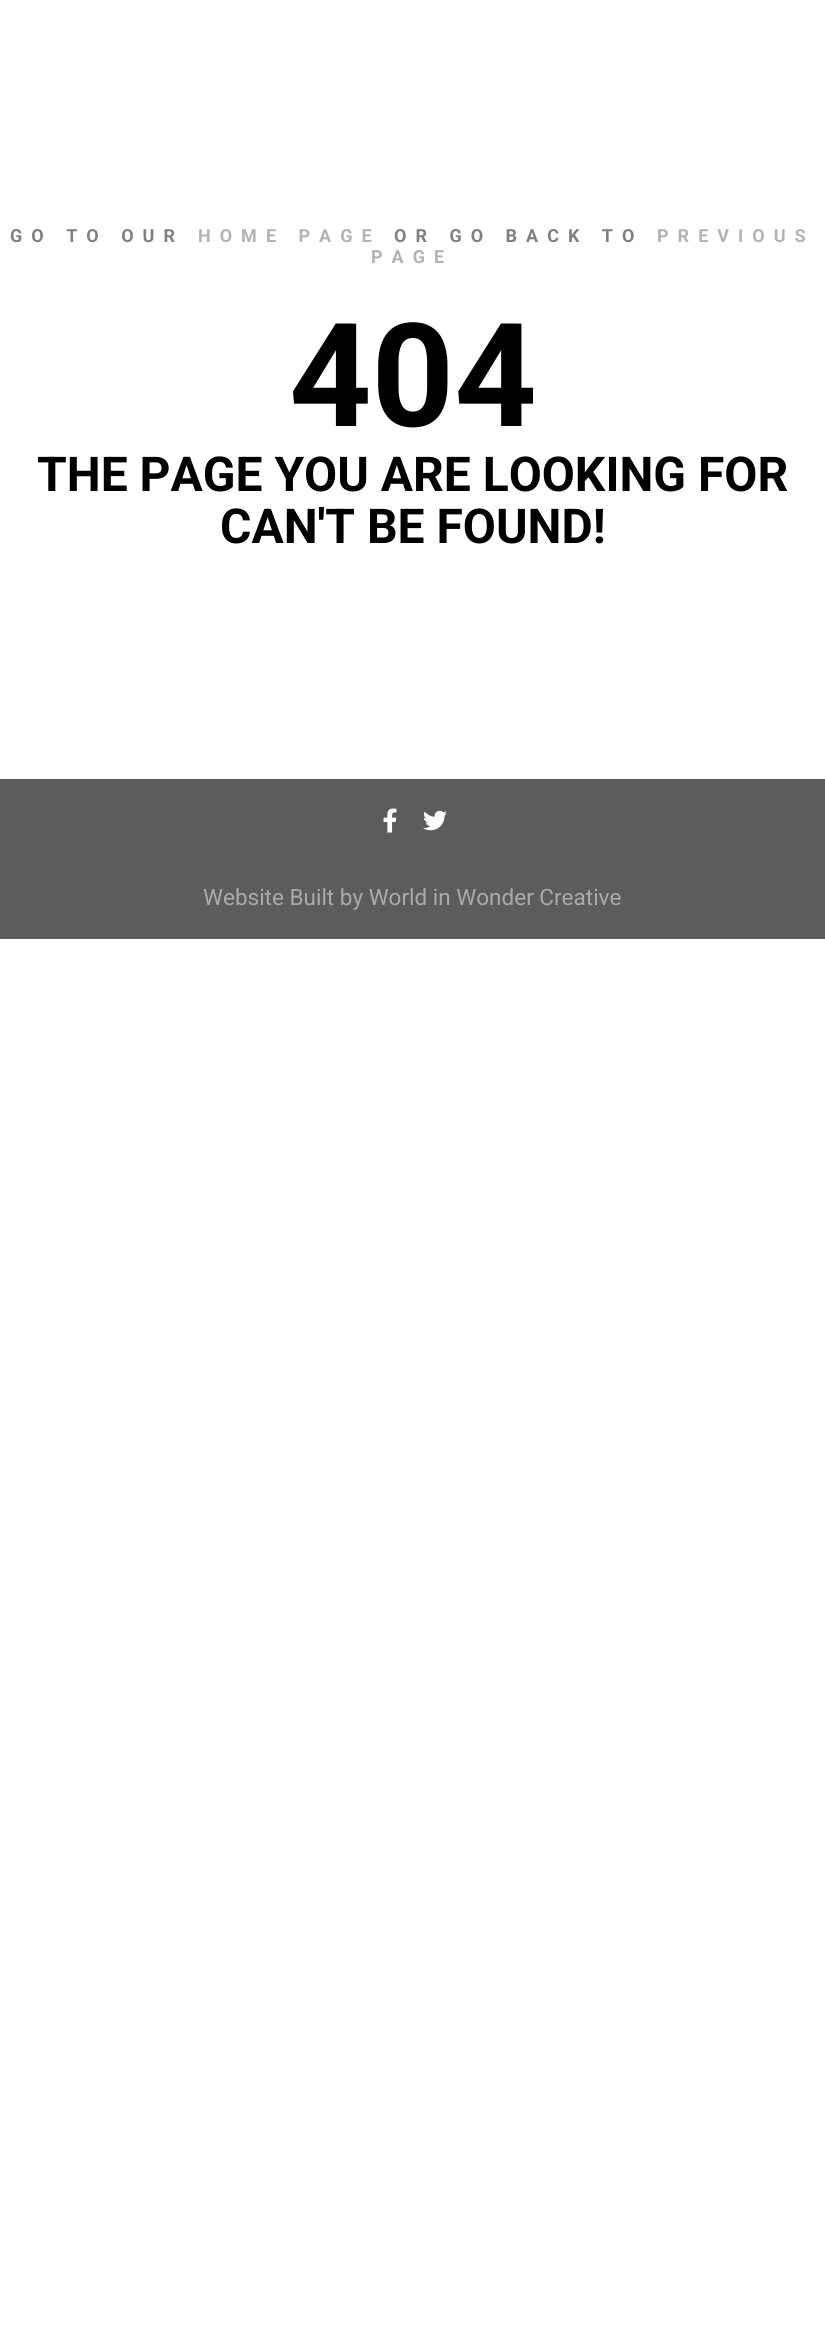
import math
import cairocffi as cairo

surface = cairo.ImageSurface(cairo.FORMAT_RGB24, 825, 2345)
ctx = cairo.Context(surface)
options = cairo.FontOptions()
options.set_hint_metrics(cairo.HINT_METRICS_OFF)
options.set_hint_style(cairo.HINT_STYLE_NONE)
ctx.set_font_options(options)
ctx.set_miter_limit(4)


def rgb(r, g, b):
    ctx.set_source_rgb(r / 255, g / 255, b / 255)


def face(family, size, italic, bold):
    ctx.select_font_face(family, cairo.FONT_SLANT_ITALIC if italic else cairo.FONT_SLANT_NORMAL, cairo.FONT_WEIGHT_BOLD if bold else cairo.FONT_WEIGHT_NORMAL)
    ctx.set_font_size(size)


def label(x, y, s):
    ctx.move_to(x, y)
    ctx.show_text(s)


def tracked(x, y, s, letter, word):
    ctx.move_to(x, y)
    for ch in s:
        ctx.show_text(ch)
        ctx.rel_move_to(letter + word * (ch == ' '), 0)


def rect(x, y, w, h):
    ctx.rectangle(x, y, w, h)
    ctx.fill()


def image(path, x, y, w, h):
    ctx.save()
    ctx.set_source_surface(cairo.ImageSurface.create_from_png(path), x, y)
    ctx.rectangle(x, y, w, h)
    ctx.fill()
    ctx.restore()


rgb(255, 255, 255)
ctx.paint()
face('Roboto', 18, 0, 1)
rgb(128, 128, 128)
tracked(10, 242, 'GO TO OUR', 9, 0)
rgb(179, 179, 179)
tracked(198, 242, 'HOME PAGE', 9, 0)
rgb(128, 128, 128)
tracked(394, 242, 'OR GO BACK TO', 9, 0)
rgb(179, 179, 179)
tracked(657, 242, 'PREVIOUS', 9, 0)
tracked(371, 263, 'PAGE', 9, 0)
face('Roboto', 144, 0, 1)
rgb(0, 0, 0)
label(289, 426, '404')
face('Roboto', 48, 0, 1)
label(37, 491, 'THE PAGE YOU ARE LOOKING FOR')
label(220, 543, 'CAN\'T BE FOUND!')
rgb(93, 92, 91)
rect(0, 779, 825, 160)
image('image0.png', 383, 808, 14, 25)
image('image1.png', 423, 810, 24, 21)
face('Roboto', 22.5, 0, 0)
rgb(171, 170, 170)
label(203, 905, 'Website Built by World in Wonder Creative')
surface.write_to_png('render.png')
